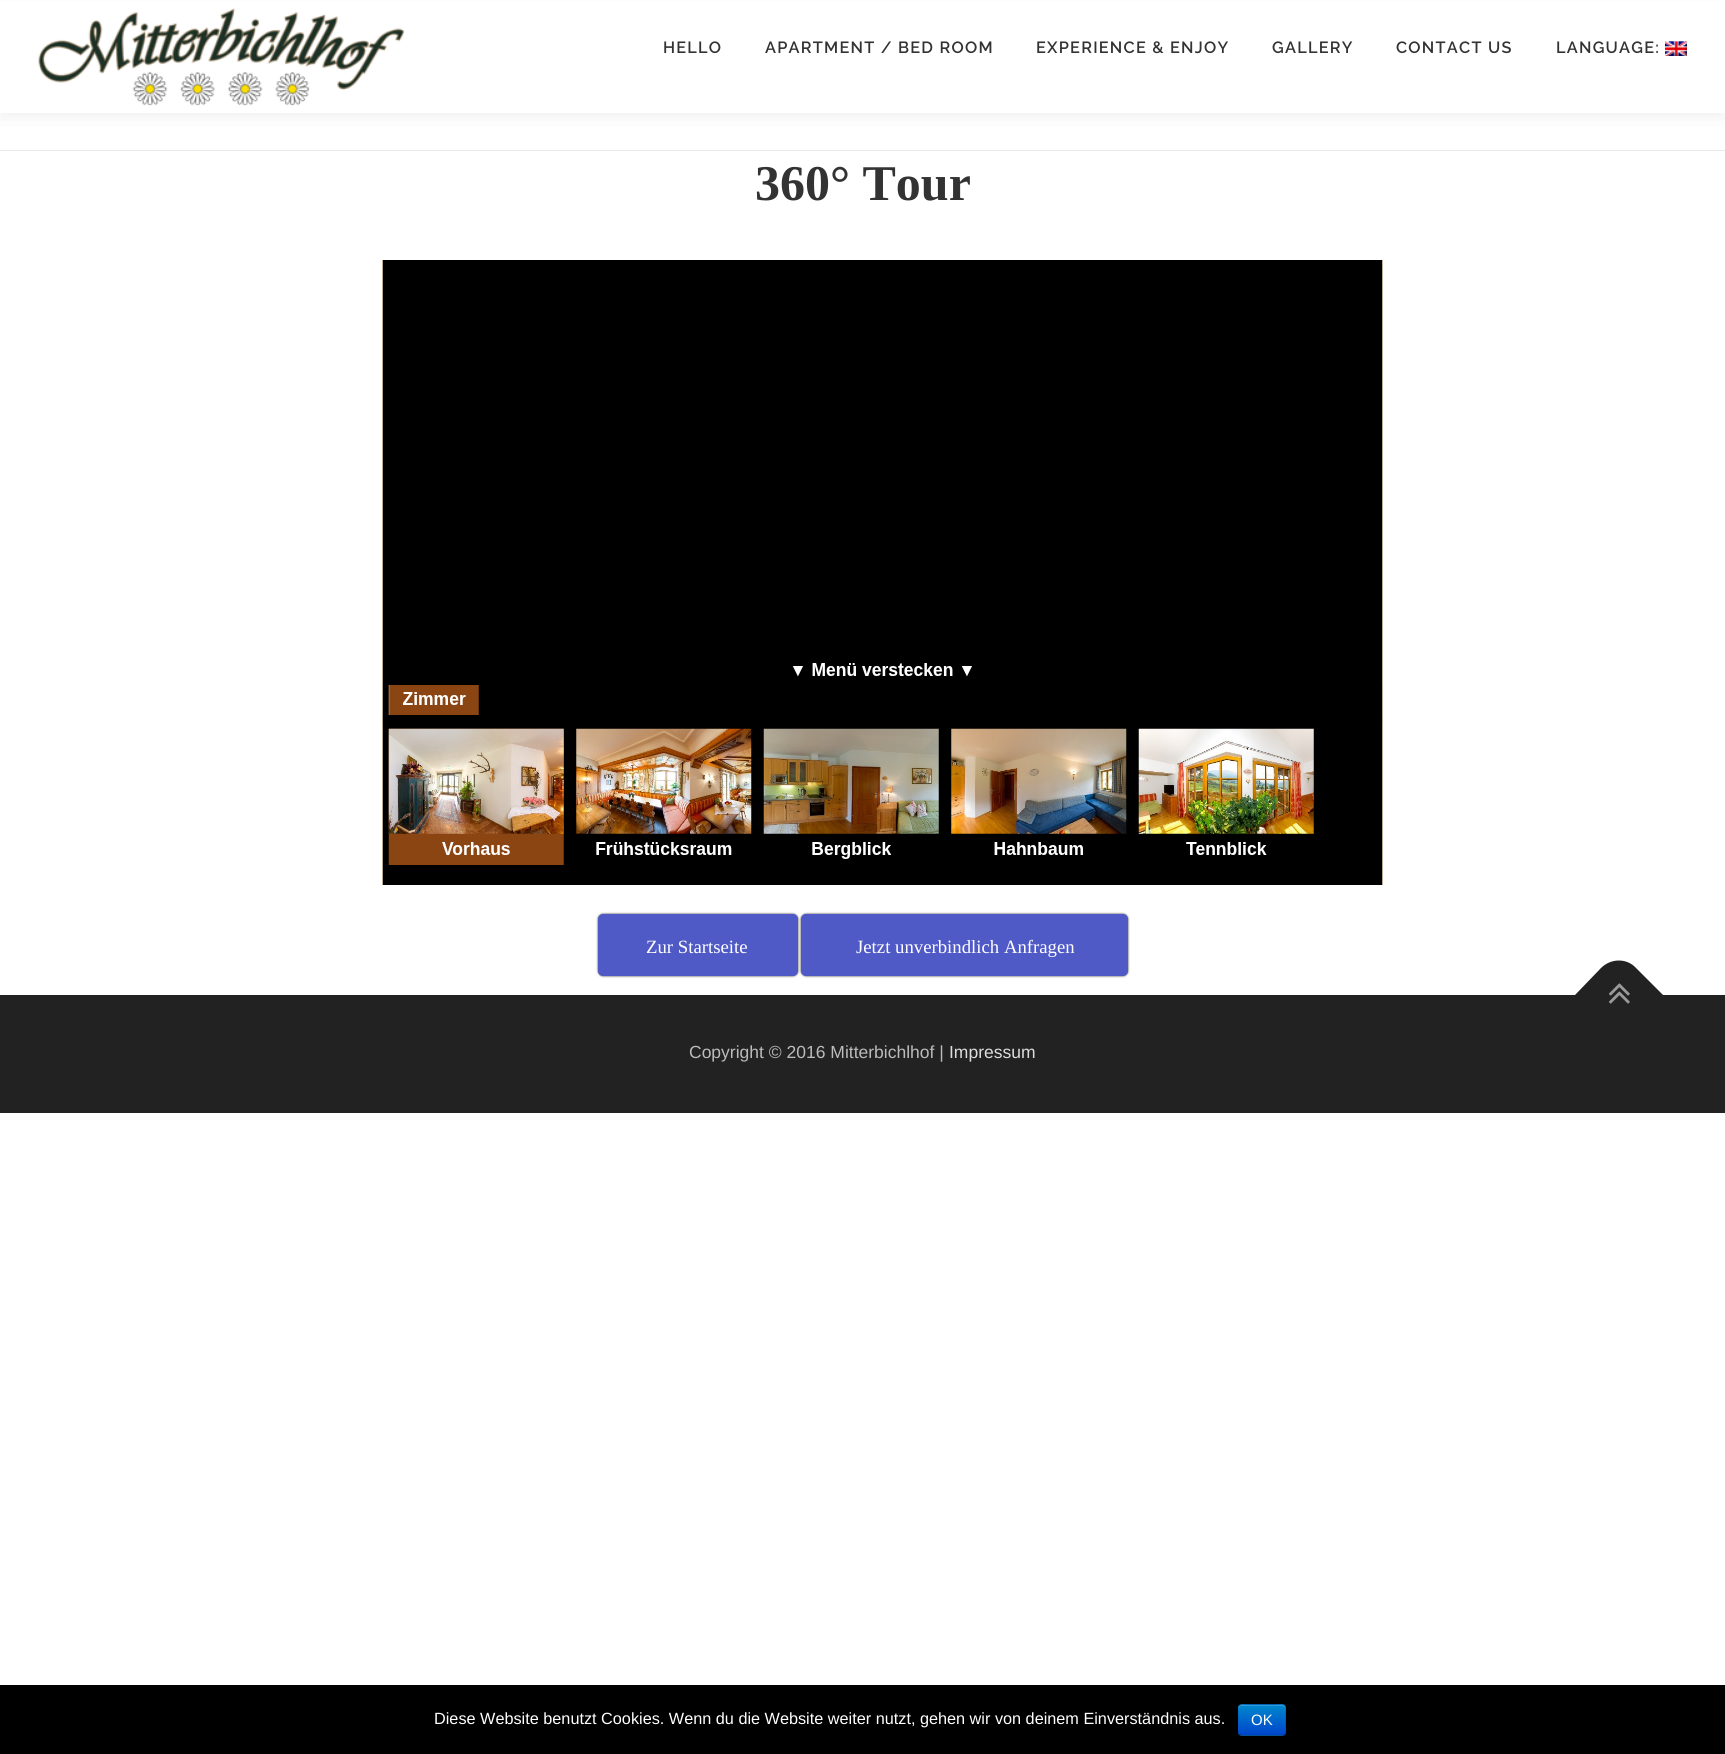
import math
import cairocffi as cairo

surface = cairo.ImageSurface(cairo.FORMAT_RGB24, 1725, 1754)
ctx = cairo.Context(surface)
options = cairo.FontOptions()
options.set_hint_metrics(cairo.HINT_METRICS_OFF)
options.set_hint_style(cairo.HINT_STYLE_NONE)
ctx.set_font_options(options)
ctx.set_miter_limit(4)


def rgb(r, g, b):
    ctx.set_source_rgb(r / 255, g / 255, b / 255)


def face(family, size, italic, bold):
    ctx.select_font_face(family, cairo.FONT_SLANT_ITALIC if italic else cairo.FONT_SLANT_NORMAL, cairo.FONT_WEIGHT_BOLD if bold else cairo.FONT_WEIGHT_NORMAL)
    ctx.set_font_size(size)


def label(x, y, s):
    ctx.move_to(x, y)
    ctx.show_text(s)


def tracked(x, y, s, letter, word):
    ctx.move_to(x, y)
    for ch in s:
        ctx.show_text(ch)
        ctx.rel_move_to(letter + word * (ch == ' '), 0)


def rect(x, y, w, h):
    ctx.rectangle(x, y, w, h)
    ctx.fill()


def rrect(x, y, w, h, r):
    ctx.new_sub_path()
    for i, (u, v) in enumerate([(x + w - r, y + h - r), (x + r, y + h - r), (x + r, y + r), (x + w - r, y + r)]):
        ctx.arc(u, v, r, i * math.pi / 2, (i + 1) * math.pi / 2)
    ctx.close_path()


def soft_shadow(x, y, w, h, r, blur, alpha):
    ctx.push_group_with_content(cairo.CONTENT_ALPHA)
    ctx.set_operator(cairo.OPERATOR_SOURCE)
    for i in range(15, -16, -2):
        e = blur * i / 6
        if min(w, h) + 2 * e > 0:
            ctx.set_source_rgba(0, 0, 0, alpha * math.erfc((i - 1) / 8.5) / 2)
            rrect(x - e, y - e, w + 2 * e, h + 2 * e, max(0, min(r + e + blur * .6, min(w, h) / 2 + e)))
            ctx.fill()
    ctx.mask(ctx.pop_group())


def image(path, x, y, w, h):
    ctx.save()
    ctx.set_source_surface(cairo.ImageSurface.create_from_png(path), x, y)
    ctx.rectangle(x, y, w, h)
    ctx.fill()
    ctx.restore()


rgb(255, 255, 255)
ctx.paint()
rgb(50, 50, 50)
soft_shadow(0, 6, 1725, 113, 0, 6, 0.06)
rgb(255, 255, 255)
rect(0, 1, 1725, 112)
image('image0.png', 38, 8, 366, 98)
face('Raleway SemiBold', 16.25, 0, 0)
rgb(51, 51, 51)
tracked(663, 53, 'HELLO', 1.25, 0)
tracked(765, 53, 'APARTMENT / BED ROOM', 1.25, 0)
tracked(1036, 53, 'EXPERIENCE & ENJOY', 1.25, 0)
tracked(1272, 53, 'GALLERY', 1.25, 0)
tracked(1396, 53, 'CONTACT US', 1.25, 0)
tracked(1556, 53, 'LANGUAGE:', 1.25, 0)
image('image1.png', 1665, 41, 22, 15)
rgb(233, 233, 233)
rect(0, 150, 1725, 1)
face('Liberation Serif', 50, 0, 1)
rgb(51, 51, 51)
label(755, 200, '360° Tour')
image('image2.png', 382, 260, 1001, 625)
rgb(51, 51, 51)
soft_shadow(598, 914, 200, 62, 5, 1, 1)
rgb(80, 90, 199)
rrect(599.5, 915.5, 197, 59, 3.5)
ctx.fill_preserve()
ctx.set_line_width(3)
ctx.stroke()
face('Liberation Serif', 18.75, 0, 0)
rgb(255, 255, 255)
label(646, 953, 'Zur Startseite')
rgb(51, 51, 51)
soft_shadow(801, 914, 327, 62, 5, 1, 1)
rgb(80, 90, 199)
rrect(802.5, 915.5, 324, 59, 3.5)
ctx.fill_preserve()
ctx.stroke()
rgb(255, 255, 255)
label(856, 953, 'Jetzt unverbindlich Anfragen')
rgb(34, 34, 34)
rect(0, 995, 1725, 118)
ctx.new_path()
ctx.move_to(1575, 995)
ctx.line_to(1601, 968)
ctx.curve_to(1611, 958, 1627, 958, 1636, 968)
ctx.line_to(1663, 995)
ctx.line_to(1619, 1039)
ctx.close_path()
ctx.fill()
image('image3.png', 1609, 983, 21, 21)
face('Liberation Sans', 17.5, 0, 0)
rgb(187, 187, 187)
label(689, 1058, 'Copyright © 2016 Mitterbichlhof |')
rgb(221, 221, 221)
label(949, 1058, 'Impressum')
rgb(0, 0, 0)
rect(0, 1685, 1725, 69)
face('Liberation Sans', 16.25, 0, 0)
rgb(255, 255, 255)
label(434, 1724, 'Diese Website benutzt Cookies. Wenn du die Website weiter nutzt, gehen wir von deinem Einverständnis aus.')
rgb(0, 109, 204)
rrect(1238, 1704, 48, 32, 4)
ctx.fill()
ctx.save()
rrect(1238, 1704, 48, 32, 4)
ctx.clip()
gradient = cairo.LinearGradient(1262, 1705, 1262, 1735)
gradient.add_color_stop_rgba(0, 0, 0.533, 0.8, 1)
gradient.add_color_stop_rgba(1, 0, 0.267, 0.8, 1)
ctx.set_source(gradient)
rect(1238, 1705, 48, 30)
ctx.restore()
rgb(51, 159, 214)
ctx.new_path()
ctx.move_to(1241, 1706)
ctx.line_to(1282, 1706)
ctx.curve_to(1284, 1706, 1285, 1707, 1285, 1709)
ctx.curve_to(1285, 1703, 1281, 1705, 1276, 1705)
ctx.line_to(1248, 1705)
ctx.curve_to(1243, 1705, 1239, 1703, 1239, 1709)
ctx.curve_to(1239, 1707, 1240, 1706, 1241, 1706)
ctx.close_path()
ctx.fill()
ctx.new_path()
ctx.move_to(1284.5, 1734.5)
ctx.line_to(1282.5, 1735.5)
ctx.line_to(1241, 1735.5)
ctx.line_to(1239, 1734.5)
ctx.set_source_rgba(0, 0, 0, 0.25)
ctx.set_line_width(1.2)
ctx.stroke()
ctx.new_path()
ctx.move_to(1239, 1734.5)
ctx.curve_to(1237, 1732.5, 1238, 1723, 1238, 1720)
ctx.curve_to(1238, 1705, 1234.5, 1704.5, 1248, 1704.5)
ctx.line_to(1275.5, 1704.5)
ctx.curve_to(1289, 1704.5, 1285.5, 1705, 1285.5, 1720)
ctx.curve_to(1285.5, 1723, 1287, 1732.5, 1284.5, 1734.5)
ctx.set_source_rgba(0, 0, 0, 0.1)
ctx.stroke()
face('Liberation Sans', 15, 0, 0)
rgb(255, 255, 255)
label(1251, 1725, 'OK')
surface.write_to_png('render.png')
